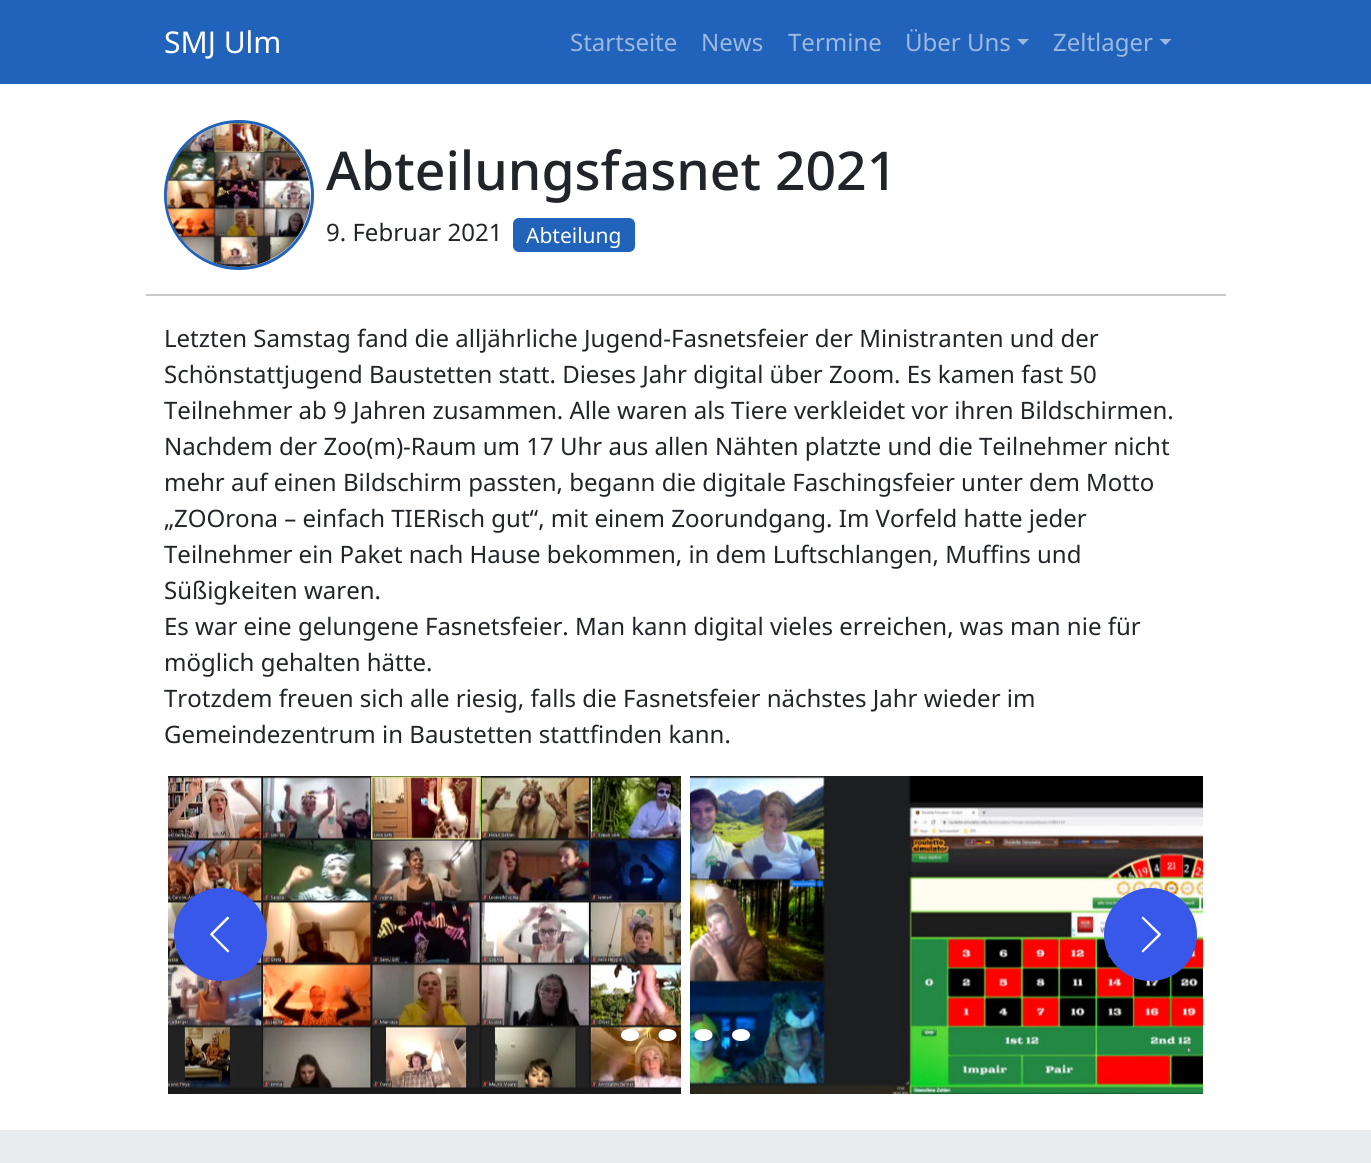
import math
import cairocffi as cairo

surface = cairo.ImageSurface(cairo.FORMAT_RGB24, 1371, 1163)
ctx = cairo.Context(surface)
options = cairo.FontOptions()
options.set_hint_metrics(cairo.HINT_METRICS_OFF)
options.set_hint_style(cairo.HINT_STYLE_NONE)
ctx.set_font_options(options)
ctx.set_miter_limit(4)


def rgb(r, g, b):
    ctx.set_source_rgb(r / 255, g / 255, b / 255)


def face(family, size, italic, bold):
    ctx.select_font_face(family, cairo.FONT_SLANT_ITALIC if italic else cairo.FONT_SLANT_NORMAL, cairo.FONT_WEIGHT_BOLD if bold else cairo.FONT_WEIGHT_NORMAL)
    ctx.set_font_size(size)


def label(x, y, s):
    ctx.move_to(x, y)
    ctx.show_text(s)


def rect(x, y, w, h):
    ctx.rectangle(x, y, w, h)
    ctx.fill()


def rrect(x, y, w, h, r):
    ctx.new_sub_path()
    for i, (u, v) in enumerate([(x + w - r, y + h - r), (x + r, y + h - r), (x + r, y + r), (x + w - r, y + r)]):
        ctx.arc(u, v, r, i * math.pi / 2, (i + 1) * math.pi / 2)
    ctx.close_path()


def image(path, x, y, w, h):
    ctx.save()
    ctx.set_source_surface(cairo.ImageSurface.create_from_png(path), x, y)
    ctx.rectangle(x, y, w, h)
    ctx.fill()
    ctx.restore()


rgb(255, 255, 255)
ctx.paint()
rgb(33, 98, 186)
rect(0, 0, 1371, 84)
face('Noto Sans', 30, 0, 0)
rgb(255, 255, 255)
label(164, 53, 'SMJ Ulm')
face('Noto Sans', 24, 0, 0)
rgb(155, 184, 224)
label(570, 51, 'Startseite')
label(701, 51, 'News')
label(788, 51, 'Termine')
label(905, 51, 'Über Uns')
ctx.new_path()
ctx.move_to(1017, 39)
ctx.line_to(1029, 39)
ctx.line_to(1023, 45)
ctx.close_path()
ctx.fill()
label(1053, 51, 'Zeltlager')
ctx.new_path()
ctx.move_to(1159.5, 39)
ctx.line_to(1171.5, 39)
ctx.line_to(1165.5, 45)
ctx.close_path()
ctx.fill()
ctx.arc(239, 195, 73.5, 0, 2 * math.pi)
rgb(33, 98, 186)
ctx.set_line_width(3)
ctx.stroke()
image('image0.png', 166, 123, 145, 144)
face('Noto Sans Medium', 53.5, 0, 0)
rgb(33, 37, 41)
label(326, 190, 'Abteilungsfasnet 2021')
face('Noto Sans', 24, 0, 0)
label(326, 241, '9. Februar 2021')
rgb(33, 98, 186)
rrect(514, 219, 120, 32, 5)
ctx.fill_preserve()
ctx.set_line_width(2)
ctx.stroke()
face('Noto Sans', 21, 0, 0)
rgb(255, 255, 255)
label(526, 243, 'Abteilung')
rgb(200, 201, 202)
rect(146, 294, 1080, 2)
face('Noto Sans', 24, 0, 0)
rgb(33, 37, 41)
label(164, 347, 'Letzten Samstag fand die alljährliche Jugend-Fasnetsfeier der Ministranten und der')
label(164, 383, 'Schönstattjugend Baustetten statt. Dieses Jahr digital über Zoom. Es kamen fast 50')
label(164, 419, 'Teilnehmer ab 9 Jahren zusammen. Alle waren als Tiere verkleidet vor ihren Bildschirmen.')
label(164, 455, 'Nachdem der Zoo(m)-Raum um 17 Uhr aus allen Nähten platzte und die Teilnehmer nicht')
label(164, 491, 'mehr auf einen Bildschirm passten, begann die digitale Faschingsfeier unter dem Motto')
label(164, 527, '„ZOOrona – einfach TIERisch gut“, mit einem Zoorundgang. Im Vorfeld hatte jeder')
label(164, 563, 'Teilnehmer ein Paket nach Hause bekommen, in dem Luftschlangen, Muffins und')
label(164, 599, 'Süßigkeiten waren.')
label(164, 635, 'Es war eine gelungene Fasnetsfeier. Man kann digital vieles erreichen, was man nie für')
label(164, 671, 'möglich gehalten hätte.')
label(164, 707, 'Trotzdem freuen sich alle riesig, falls die Fasnetsfeier nächstes Jahr wieder im')
label(164, 743, 'Gemeindezentrum in Baustetten stattfinden kann.')
image('image1.png', 168, 776, 513, 318)
image('image2.png', 690, 776, 513, 318)
rgb(56, 88, 233)
ctx.arc(220.5, 934.5, 46.5, 0, 2 * math.pi)
ctx.fill()
rgb(255, 255, 255)
ctx.set_fill_rule(cairo.FILL_RULE_EVEN_ODD)
ctx.new_path()
ctx.move_to(227.5, 916.5)
ctx.line_to(229.5, 918)
ctx.line_to(213, 934.5)
ctx.line_to(229.5, 951)
ctx.line_to(227.5, 952.5)
ctx.line_to(210.5, 935)
ctx.curve_to(210, 935, 210, 934, 210.5, 933.5)
ctx.close_path()
ctx.fill()
rgb(56, 88, 233)
ctx.arc(1150.5, 934.5, 46.5, 0, 2 * math.pi)
ctx.fill()
rgb(255, 255, 255)
ctx.new_path()
ctx.move_to(1143, 952.5)
ctx.line_to(1141.5, 951)
ctx.line_to(1158, 934.5)
ctx.line_to(1141.5, 918)
ctx.line_to(1143, 916.5)
ctx.line_to(1160.5, 933.5)
ctx.curve_to(1161, 934, 1161, 935, 1160.5, 935.5)
ctx.close_path()
ctx.fill()
ctx.new_path()
ctx.move_to(630, 1029)
ctx.curve_to(635, 1029, 639, 1031.5, 639, 1035)
ctx.curve_to(639, 1038.5, 635, 1041, 630, 1041)
ctx.curve_to(625, 1041, 621, 1038.5, 621, 1035)
ctx.curve_to(621, 1031.5, 625, 1029, 630, 1029)
ctx.close_path()
ctx.fill()
ctx.new_path()
ctx.move_to(667.5, 1029)
ctx.curve_to(672.5, 1029, 676.5, 1031.5, 676.5, 1035)
ctx.curve_to(676.5, 1038.5, 672.5, 1041, 667.5, 1041)
ctx.curve_to(662.5, 1041, 658.5, 1038.5, 658.5, 1035)
ctx.curve_to(658.5, 1031.5, 662.5, 1029, 667.5, 1029)
ctx.close_path()
ctx.fill()
ctx.new_path()
ctx.move_to(703.5, 1029)
ctx.curve_to(708.5, 1029, 712.5, 1031.5, 712.5, 1035)
ctx.curve_to(712.5, 1038.5, 708.5, 1041, 703.5, 1041)
ctx.curve_to(698.5, 1041, 694.5, 1038.5, 694.5, 1035)
ctx.curve_to(694.5, 1031.5, 698.5, 1029, 703.5, 1029)
ctx.close_path()
ctx.fill()
ctx.new_path()
ctx.move_to(741, 1029)
ctx.curve_to(746, 1029, 750, 1031.5, 750, 1035)
ctx.curve_to(750, 1038.5, 746, 1041, 741, 1041)
ctx.curve_to(736, 1041, 732, 1038.5, 732, 1035)
ctx.curve_to(732, 1031.5, 736, 1029, 741, 1029)
ctx.close_path()
ctx.fill()
rgb(233, 236, 239)
rect(0, 1130, 1371, 33)
surface.write_to_png('render.png')
